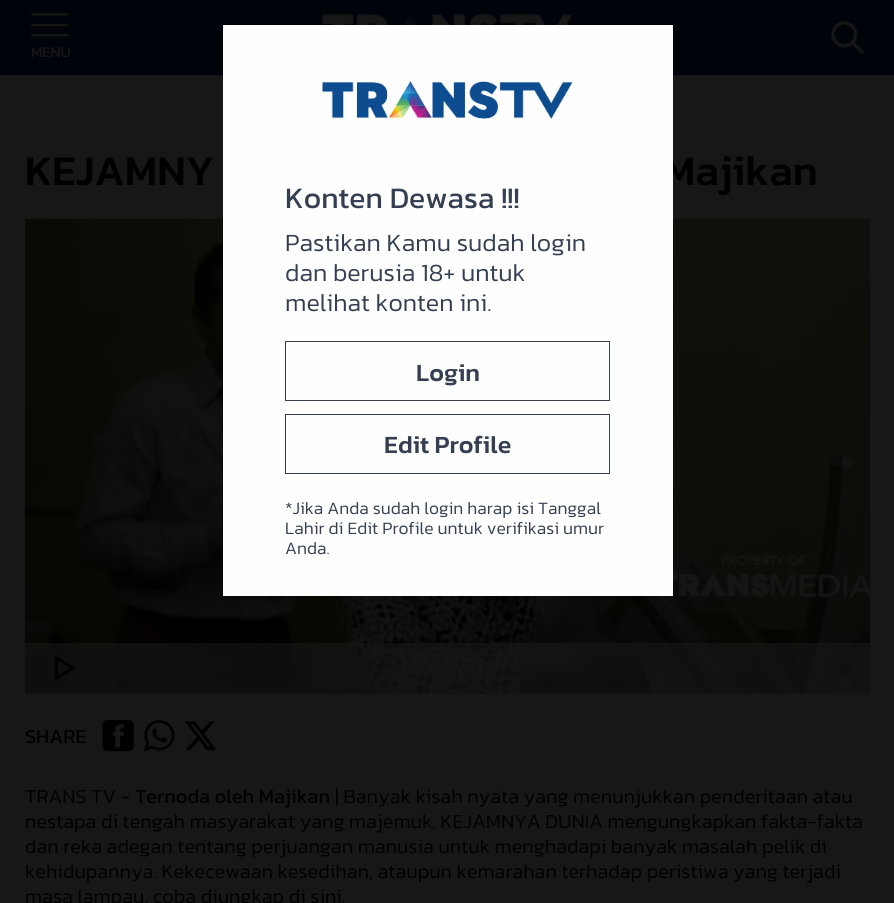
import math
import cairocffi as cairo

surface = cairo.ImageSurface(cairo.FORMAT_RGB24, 894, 903)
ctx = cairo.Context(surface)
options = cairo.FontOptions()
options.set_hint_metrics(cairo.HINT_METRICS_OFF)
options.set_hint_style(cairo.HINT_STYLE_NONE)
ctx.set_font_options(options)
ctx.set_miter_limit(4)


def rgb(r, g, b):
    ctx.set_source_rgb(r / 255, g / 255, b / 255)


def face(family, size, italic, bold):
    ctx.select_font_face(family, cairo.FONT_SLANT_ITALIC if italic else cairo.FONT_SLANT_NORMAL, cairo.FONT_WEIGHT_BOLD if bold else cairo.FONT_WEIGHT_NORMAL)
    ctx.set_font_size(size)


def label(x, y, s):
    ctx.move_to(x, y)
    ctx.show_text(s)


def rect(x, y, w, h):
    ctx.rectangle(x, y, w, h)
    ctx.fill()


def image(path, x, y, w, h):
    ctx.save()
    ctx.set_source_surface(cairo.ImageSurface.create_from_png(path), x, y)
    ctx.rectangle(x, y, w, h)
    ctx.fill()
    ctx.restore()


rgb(23, 23, 23)
ctx.paint()
rgb(1, 3, 10)
rect(0, 0, 894, 75)
image('image0.png', 322, 13, 251, 12)
image('image1.png', 31, 13, 39, 25)
face('Kanit', 15, 0, 0)
rgb(23, 23, 23)
label(31, 57, 'MENU')
image('image2.png', 831, 21, 33, 33)
face('Kanit Medium', 42.5, 0, 0)
rgb(0, 0, 0)
label(25, 185, 'KEJAMNY')
label(663, 185, 'Majikan')
image('image3.png', 25, 218, 845, 476)
ctx.set_source_rgba(0.09, 0.09, 0.09, 0.62)
rect(25, 643, 845, 51)
image('image4.png', 54, 655, 23, 26)
face('Kanit', 20, 0, 0)
rgb(0, 0, 0)
label(25, 743, 'SHARE')
image('image5.png', 102, 720, 32, 32)
image('image6.png', 143, 720, 32, 32)
image('image7.png', 185, 721, 32, 30)
face('Kanit Light', 20, 0, 0)
label(25, 803, 'TRANS TV -')
face('Kanit', 20, 0, 0)
label(135, 803, 'Ternoda oleh Majikan')
face('Kanit Light', 20, 0, 0)
label(335, 803, '| Banyak kisah nyata yang menunjukkan penderitaan atau')
label(25, 828, 'nestapa di tengah masyarakat yang majemuk. KEJAMNYA DUNIA mengungkapkan fakta-fakta')
label(25, 853, 'dan reka adegan tentang perjuangan manusia untuk menghadapi banyak masalah pelik di')
label(25, 878, 'kehidupannya. Kekecewaan kesedihan, ataupun kemarahan terhadap peristiwa yang terjadi')
label(25, 903, 'masa lampau, coba diungkap di sini.')
rgb(254, 254, 254)
rect(223, 25, 450, 571)
image('image8.png', 322, 81, 251, 38)
face('Kanit', 30, 0, 0)
rgb(52, 63, 82)
label(285, 208, 'Konten Dewasa !!!')
face('Kanit Light', 25, 0, 0)
label(285, 251, 'Pastikan Kamu sudah login')
label(285, 281, 'dan berusia 18+ untuk')
label(285, 311, 'melihat konten ini.')
ctx.rectangle(285.5, 341.5, 324, 59)
ctx.set_line_width(1)
ctx.stroke()
face('Kanit Medium', 25, 0, 0)
label(416, 381, 'Login')
ctx.rectangle(285.5, 414.5, 324, 59)
ctx.stroke()
label(384, 453, 'Edit Profile')
face('Kanit Light', 17.5, 0, 0)
label(285, 514, '*Jika Anda sudah login harap isi Tanggal')
label(285, 534, 'Lahir di Edit Profile untuk verifikasi umur')
label(285, 554, 'Anda.')
surface.write_to_png('render.png')
